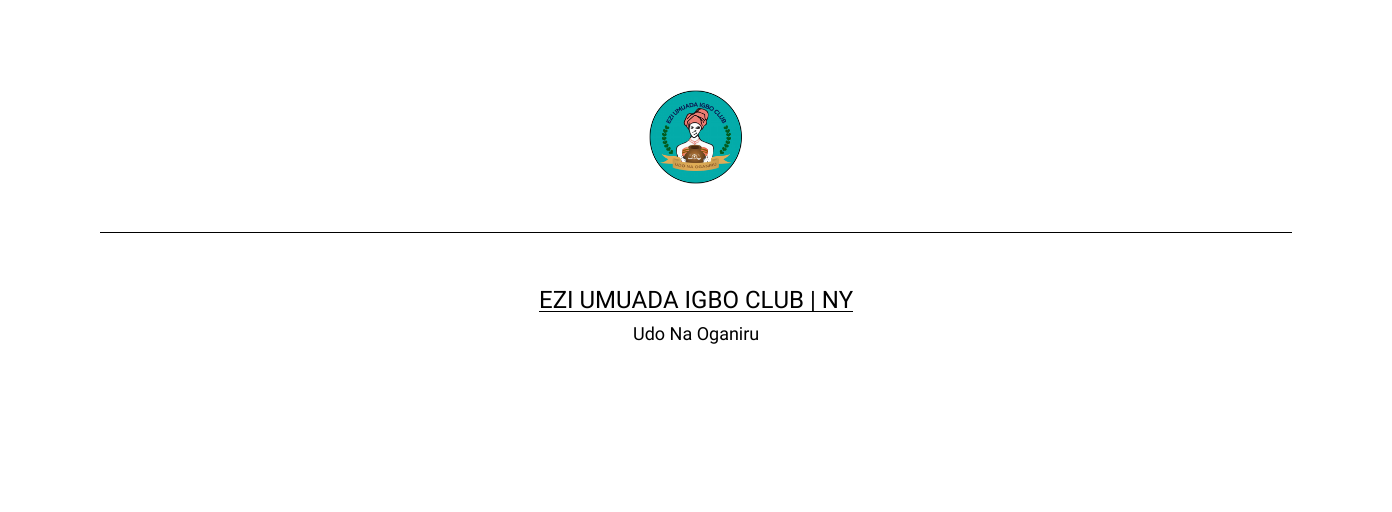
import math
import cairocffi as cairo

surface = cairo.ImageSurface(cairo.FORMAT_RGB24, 1392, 512)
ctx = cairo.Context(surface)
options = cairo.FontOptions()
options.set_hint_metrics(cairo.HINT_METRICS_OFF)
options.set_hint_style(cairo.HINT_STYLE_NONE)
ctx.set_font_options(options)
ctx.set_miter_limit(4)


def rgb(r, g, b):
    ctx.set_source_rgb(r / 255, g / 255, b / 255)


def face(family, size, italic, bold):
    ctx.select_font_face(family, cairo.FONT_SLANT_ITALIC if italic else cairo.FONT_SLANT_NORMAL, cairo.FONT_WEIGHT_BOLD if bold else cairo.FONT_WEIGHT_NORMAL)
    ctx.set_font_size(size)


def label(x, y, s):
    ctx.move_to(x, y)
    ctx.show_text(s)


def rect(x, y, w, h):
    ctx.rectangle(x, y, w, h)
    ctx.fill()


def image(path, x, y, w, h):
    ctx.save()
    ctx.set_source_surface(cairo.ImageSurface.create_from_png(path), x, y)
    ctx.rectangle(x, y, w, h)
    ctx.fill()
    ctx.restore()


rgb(255, 255, 255)
ctx.paint()
rgb(0, 0, 0)
rect(100, 232, 1192, 1)
image('image0.png', 649, 90, 93, 94)
rect(539, 311, 314, 1)
face('Roboto', 24, 0, 0)
label(539, 308, 'EZI UMUADA IGBO CLUB | NY')
face('Roboto', 18, 0, 0)
label(633, 340, 'Udo Na Oganiru')
surface.write_to_png('render.png')
